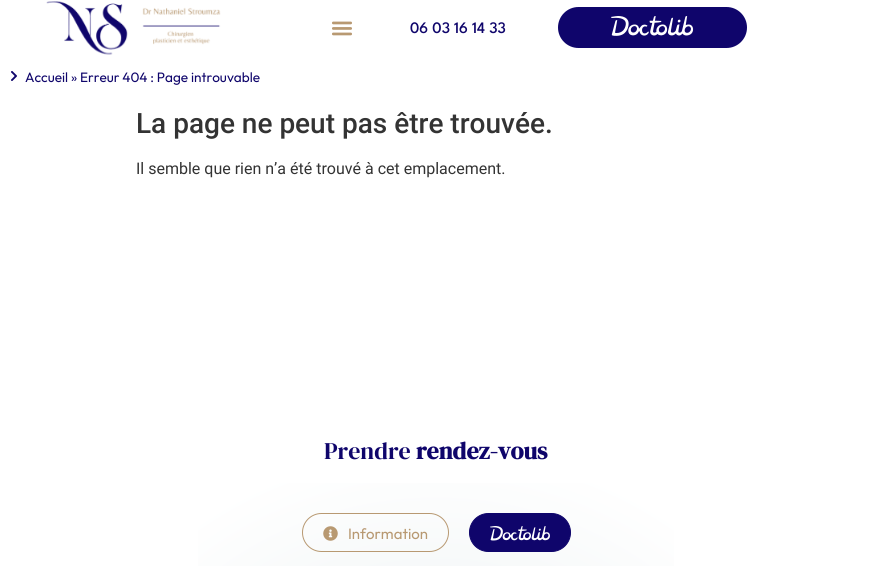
import math
import cairocffi as cairo

surface = cairo.ImageSurface(cairo.FORMAT_RGB24, 872, 566)
ctx = cairo.Context(surface)
options = cairo.FontOptions()
options.set_hint_metrics(cairo.HINT_METRICS_OFF)
options.set_hint_style(cairo.HINT_STYLE_NONE)
ctx.set_font_options(options)
ctx.set_miter_limit(4)


def rgb(r, g, b):
    ctx.set_source_rgb(r / 255, g / 255, b / 255)


def face(family, size, italic, bold):
    ctx.select_font_face(family, cairo.FONT_SLANT_ITALIC if italic else cairo.FONT_SLANT_NORMAL, cairo.FONT_WEIGHT_BOLD if bold else cairo.FONT_WEIGHT_NORMAL)
    ctx.set_font_size(size)


def label(x, y, s):
    ctx.move_to(x, y)
    ctx.show_text(s)


def rect(x, y, w, h):
    ctx.rectangle(x, y, w, h)
    ctx.fill()


def rrect(x, y, w, h, r):
    ctx.new_sub_path()
    for i, (u, v) in enumerate([(x + w - r, y + h - r), (x + r, y + h - r), (x + r, y + r), (x + w - r, y + r)]):
        ctx.arc(u, v, r, i * math.pi / 2, (i + 1) * math.pi / 2)
    ctx.close_path()


def image(path, x, y, w, h):
    ctx.save()
    ctx.set_source_surface(cairo.ImageSurface.create_from_png(path), x, y)
    ctx.rectangle(x, y, w, h)
    ctx.fill()
    ctx.restore()


rgb(255, 255, 255)
ctx.paint()
image('image0.png', 46, 1, 175, 54)
image('image1.png', 332, 21, 20, 15)
face('League Spartan Medium', 16, 0, 0)
rgb(15, 5, 107)
label(410, 33, '06 03 16 14 33')
rrect(558, 7, 189, 41, 20.5)
ctx.fill()
image('image2.png', 611, 16, 83, 20)
image('image3.png', 11, 71, 6, 10)
face('Outfit', 13.6, 0, 0)
label(25, 82, 'Accueil » Erreur 404 : Page introuvable')
face('Roboto Medium', 28, 0, 0)
rgb(51, 51, 51)
label(136, 133, 'La page ne peut pas être trouvée.')
face('Roboto', 16, 0, 0)
label(136, 174, 'Il semble que rien n’a été trouvé à cet emplacement.')
gradient = cairo.RadialGradient(0, 0, 0, 0, 0, 1)
gradient.set_matrix(cairo.Matrix(1 / 617, 0, 0, 1 / 571, -1 * 436 / 617, -1 * 817 / 571))
gradient.add_color_stop_rgba(0, 0.902, 0.929, 0.933, 1)
gradient.add_color_stop_rgba(0.65, 1, 1, 1, 1)
ctx.set_source(gradient)
rect(198, 483, 476, 83)
face('DM Serif Display', 24, 0, 0)
rgb(15, 5, 107)
label(324, 459, 'Prendre')
face('DM Serif Display', 24, 0, 1)
label(416, 459, 'rendez-vous')
rrect(302.5, 513.5, 146, 38, 19)
rgb(184, 153, 114)
ctx.set_line_width(1)
ctx.stroke()
image('image4.png', 323, 526, 15, 15)
face('Outfit', 15, 0, 0)
label(348, 539, 'Information')
rgb(15, 5, 107)
rrect(469.5, 513.5, 101, 38, 19)
ctx.fill_preserve()
ctx.stroke()
image('image5.png', 490, 526, 60, 15)
surface.write_to_png('render.png')
